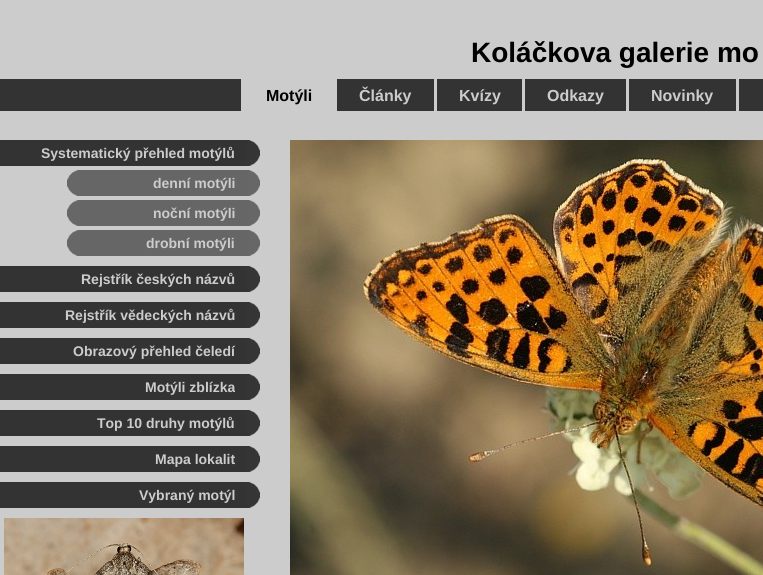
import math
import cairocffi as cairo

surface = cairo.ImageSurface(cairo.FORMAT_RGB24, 763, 575)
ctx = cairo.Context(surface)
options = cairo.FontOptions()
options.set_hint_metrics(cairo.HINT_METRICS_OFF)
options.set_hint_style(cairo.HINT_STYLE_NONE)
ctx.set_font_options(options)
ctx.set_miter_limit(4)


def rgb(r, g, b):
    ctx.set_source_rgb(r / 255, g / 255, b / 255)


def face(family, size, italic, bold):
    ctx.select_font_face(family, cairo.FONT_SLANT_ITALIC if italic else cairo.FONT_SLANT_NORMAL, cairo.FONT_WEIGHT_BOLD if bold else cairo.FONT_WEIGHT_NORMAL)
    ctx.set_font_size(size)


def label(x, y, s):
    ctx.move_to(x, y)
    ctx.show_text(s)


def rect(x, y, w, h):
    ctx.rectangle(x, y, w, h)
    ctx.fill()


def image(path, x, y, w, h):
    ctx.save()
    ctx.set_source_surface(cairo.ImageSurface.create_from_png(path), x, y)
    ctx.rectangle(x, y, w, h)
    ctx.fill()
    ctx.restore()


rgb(204, 204, 204)
ctx.paint()
face('Liberation Sans', 28, 0, 1)
rgb(0, 0, 0)
label(471, 62, 'Koláčkova galerie mo')
rgb(51, 51, 51)
rect(0, 79, 763, 32)
rgb(204, 204, 204)
rect(241, 79, 96, 32)
rect(434, 79, 3, 32)
face('Liberation Sans', 16, 0, 1)
label(359, 101, 'Články')
rgb(0, 0, 0)
label(266, 101, 'Motýli')
rgb(204, 204, 204)
rect(522, 79, 3, 32)
label(459, 101, 'Kvízy')
rect(626, 79, 3, 32)
label(547, 101, 'Odkazy')
rect(736, 79, 3, 32)
label(651, 101, 'Novinky')
rgb(51, 51, 51)
rect(0, 140, 247, 26)
face('Liberation Sans', 14, 0, 1)
rgb(204, 204, 204)
label(41, 158, 'Systematický přehled motýlů')
image('image0.png', 247, 140, 13, 26)
image('image1.png', 67, 170, 13, 26)
rgb(102, 102, 102)
rect(80, 170, 167, 26)
rgb(204, 204, 204)
label(153, 188, 'denní motýli')
image('image2.png', 247, 170, 13, 26)
image('image1.png', 67, 200, 13, 26)
rgb(102, 102, 102)
rect(80, 200, 167, 26)
rgb(204, 204, 204)
label(153, 218, 'noční motýli')
image('image2.png', 247, 200, 13, 26)
image('image1.png', 67, 230, 13, 26)
rgb(102, 102, 102)
rect(80, 230, 167, 26)
rgb(204, 204, 204)
label(146, 248, 'drobní motýli')
image('image2.png', 247, 230, 13, 26)
rgb(51, 51, 51)
rect(0, 266, 247, 26)
rgb(204, 204, 204)
label(81, 284, 'Rejstřík českých názvů')
image('image0.png', 247, 266, 13, 26)
rgb(51, 51, 51)
rect(0, 302, 247, 26)
rgb(204, 204, 204)
label(65, 320, 'Rejstřík vědeckých názvů')
image('image0.png', 247, 302, 13, 26)
rgb(51, 51, 51)
rect(0, 338, 247, 26)
rgb(204, 204, 204)
label(73, 356, 'Obrazový přehled čeledí')
image('image0.png', 247, 338, 13, 26)
rgb(51, 51, 51)
rect(0, 374, 247, 26)
rgb(204, 204, 204)
label(145, 392, 'Motýli zblízka')
image('image0.png', 247, 374, 13, 26)
rgb(51, 51, 51)
rect(0, 410, 247, 26)
rgb(204, 204, 204)
label(97, 428, 'Top 10 druhy motýlů')
image('image0.png', 247, 410, 13, 26)
rgb(51, 51, 51)
rect(0, 446, 247, 26)
rgb(204, 204, 204)
label(155, 464, 'Mapa lokalit')
image('image0.png', 247, 446, 13, 26)
rgb(51, 51, 51)
rect(0, 482, 247, 26)
rgb(204, 204, 204)
label(139, 500, 'Vybraný motýl')
image('image0.png', 247, 482, 13, 26)
image('image3.png', 4, 518, 240, 57)
image('image4.png', 290, 140, 473, 435)
surface.write_to_png('render.png')
